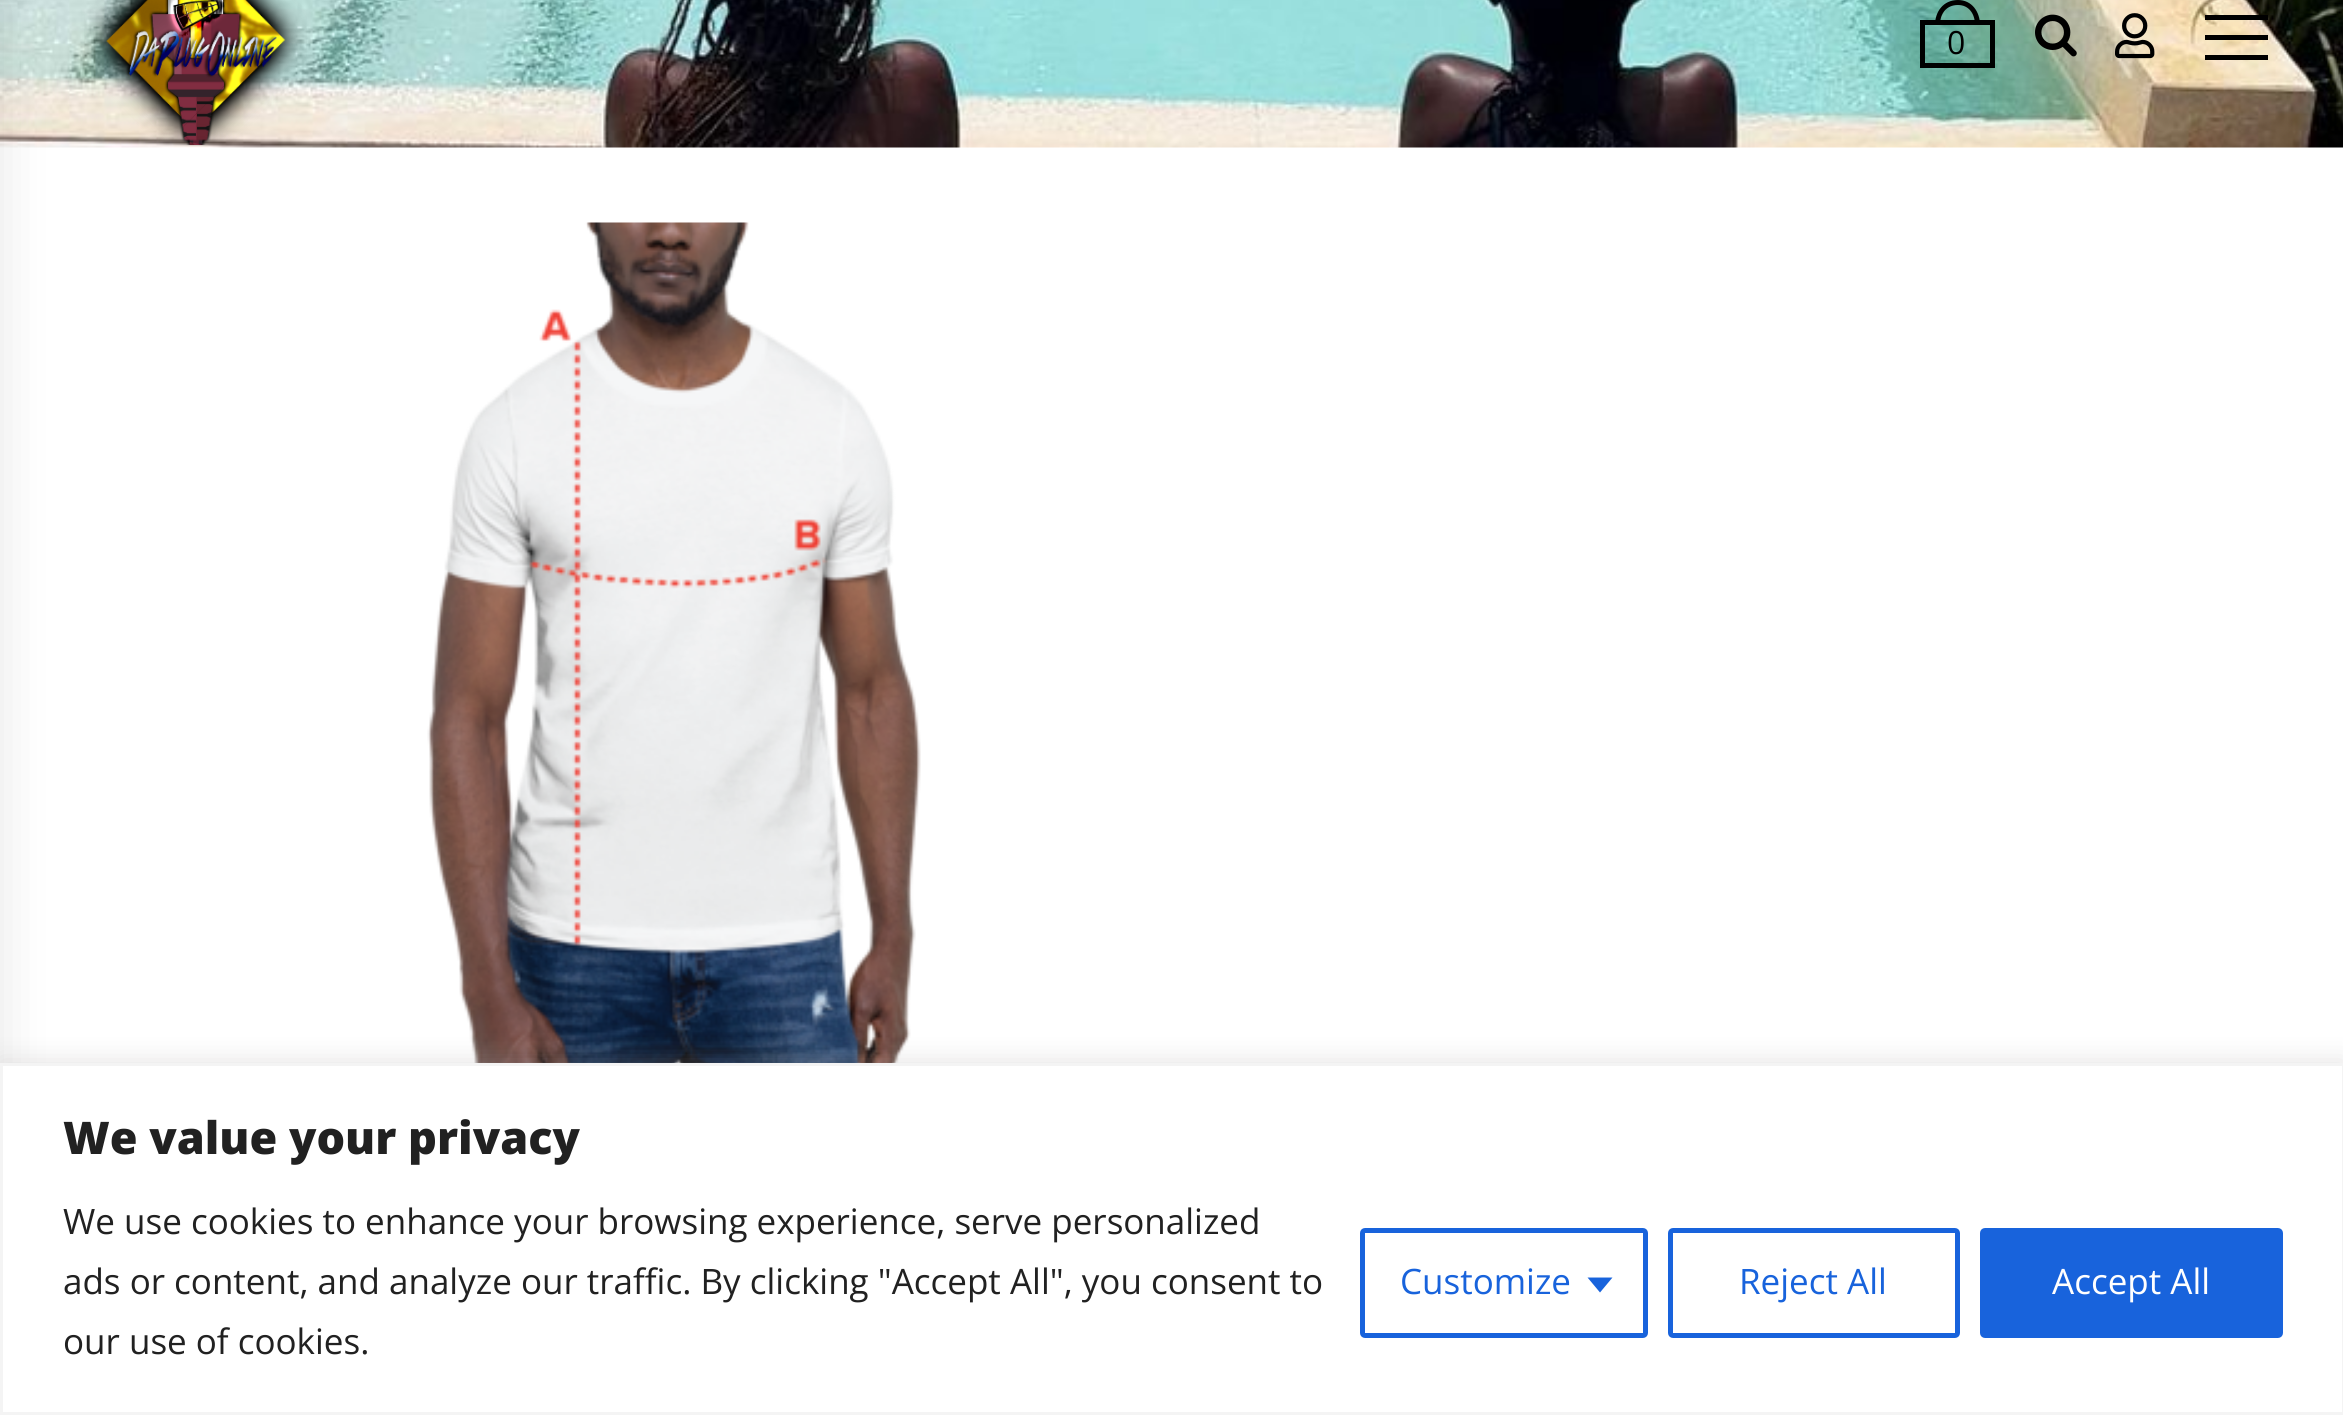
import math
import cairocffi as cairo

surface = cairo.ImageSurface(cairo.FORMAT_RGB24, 2343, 1415)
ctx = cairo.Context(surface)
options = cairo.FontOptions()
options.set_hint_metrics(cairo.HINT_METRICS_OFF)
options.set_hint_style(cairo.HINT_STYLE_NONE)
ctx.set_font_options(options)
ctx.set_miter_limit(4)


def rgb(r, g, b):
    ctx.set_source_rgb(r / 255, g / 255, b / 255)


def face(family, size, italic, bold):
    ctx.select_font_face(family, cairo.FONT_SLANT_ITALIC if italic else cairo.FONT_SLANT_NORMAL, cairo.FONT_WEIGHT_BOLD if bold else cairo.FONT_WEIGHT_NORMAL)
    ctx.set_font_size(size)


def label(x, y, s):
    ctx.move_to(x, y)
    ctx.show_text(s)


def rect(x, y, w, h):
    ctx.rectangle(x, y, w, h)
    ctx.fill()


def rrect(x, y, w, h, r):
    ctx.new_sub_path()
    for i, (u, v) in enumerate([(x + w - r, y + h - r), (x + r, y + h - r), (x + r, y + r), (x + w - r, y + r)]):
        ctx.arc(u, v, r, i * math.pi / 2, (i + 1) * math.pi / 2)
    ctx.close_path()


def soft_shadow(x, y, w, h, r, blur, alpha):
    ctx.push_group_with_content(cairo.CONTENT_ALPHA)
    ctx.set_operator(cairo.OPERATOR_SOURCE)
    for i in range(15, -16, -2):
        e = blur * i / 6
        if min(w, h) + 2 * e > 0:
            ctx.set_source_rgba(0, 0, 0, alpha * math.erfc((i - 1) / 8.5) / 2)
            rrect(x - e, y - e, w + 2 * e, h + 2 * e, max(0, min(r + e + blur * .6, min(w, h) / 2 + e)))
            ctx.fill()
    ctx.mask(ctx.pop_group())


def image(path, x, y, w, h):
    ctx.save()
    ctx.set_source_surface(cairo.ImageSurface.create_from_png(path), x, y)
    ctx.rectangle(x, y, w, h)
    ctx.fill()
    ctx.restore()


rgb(255, 255, 255)
ctx.paint()
image('image0.png', 0, 0, 2343, 148)
rgb(0, 0, 0)
soft_shadow(-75, 0, 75, 1415, 0, 25, 0.1)
image('image1.png', 84, 0, 223, 145)
ctx.rectangle(1922.5, 22.5, 70, 43)
rgb(0, 0, 0)
ctx.set_line_width(5)
ctx.stroke()
ctx.set_fill_rule(cairo.FILL_RULE_EVEN_ODD)
ctx.new_path()
ctx.move_to(1958, 0)
ctx.curve_to(1972, 0, 1980, 12, 1980, 25)
ctx.line_to(1935, 25)
ctx.curve_to(1935, 12, 1943, 0, 1958, 0)
ctx.close_path()
ctx.move_to(1958, 5)
ctx.curve_to(1969, 5, 1975, 14, 1975, 25)
ctx.line_to(1940, 25)
ctx.curve_to(1940, 14, 1946, 5, 1958, 5)
ctx.close_path()
ctx.fill()
face('Open Sans', 32, 0, 0)
label(1947, 54, '0')
image('image2.png', 2035, 14, 42, 43)
image('image3.png', 2115, 13, 40, 46)
rect(2205, 35, 63, 5)
rect(2205, 15, 63, 5)
rect(2205, 55, 63, 5)
image('image4.png', 427, 222, 494, 841)
rgb(172, 171, 171)
soft_shadow(0, 1060, 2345, 353, 0, 12.5, 0.3)
rgb(255, 255, 255)
ctx.rectangle(1.5, 1064.5, 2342, 349)
ctx.fill_preserve()
rgb(244, 244, 244)
ctx.set_line_width(3)
ctx.stroke()
face('Open Sans ExtraBold', 45, 0, 0)
rgb(33, 33, 33)
label(63, 1154, 'We value your privacy')
face('Open Sans', 35, 0, 0)
label(63, 1234, 'We use cookies to enhance your browsing experience, serve personalized')
label(63, 1294, 'ads or content, and analyze our traffic. By clicking "Accept All", you consent to')
label(63, 1354, 'our use of cookies.')
rrect(1362.5, 1230.5, 283, 105, 2.5)
rgb(24, 99, 220)
ctx.set_line_width(5)
ctx.stroke()
label(1400, 1294, 'Customize')
ctx.set_fill_rule(cairo.FILL_RULE_WINDING)
ctx.new_path()
ctx.move_to(1587.5, 1277.5)
ctx.line_to(1612.5, 1277.5)
ctx.line_to(1600, 1292.5)
ctx.close_path()
ctx.fill()
rrect(1670.5, 1230.5, 287, 105, 2.5)
ctx.stroke()
label(1739, 1294, 'Reject All')
rrect(1982.5, 1230.5, 298, 105, 2.5)
ctx.fill_preserve()
ctx.stroke()
rgb(255, 255, 255)
label(2052, 1294, 'Accept All')
surface.write_to_png('render.png')
